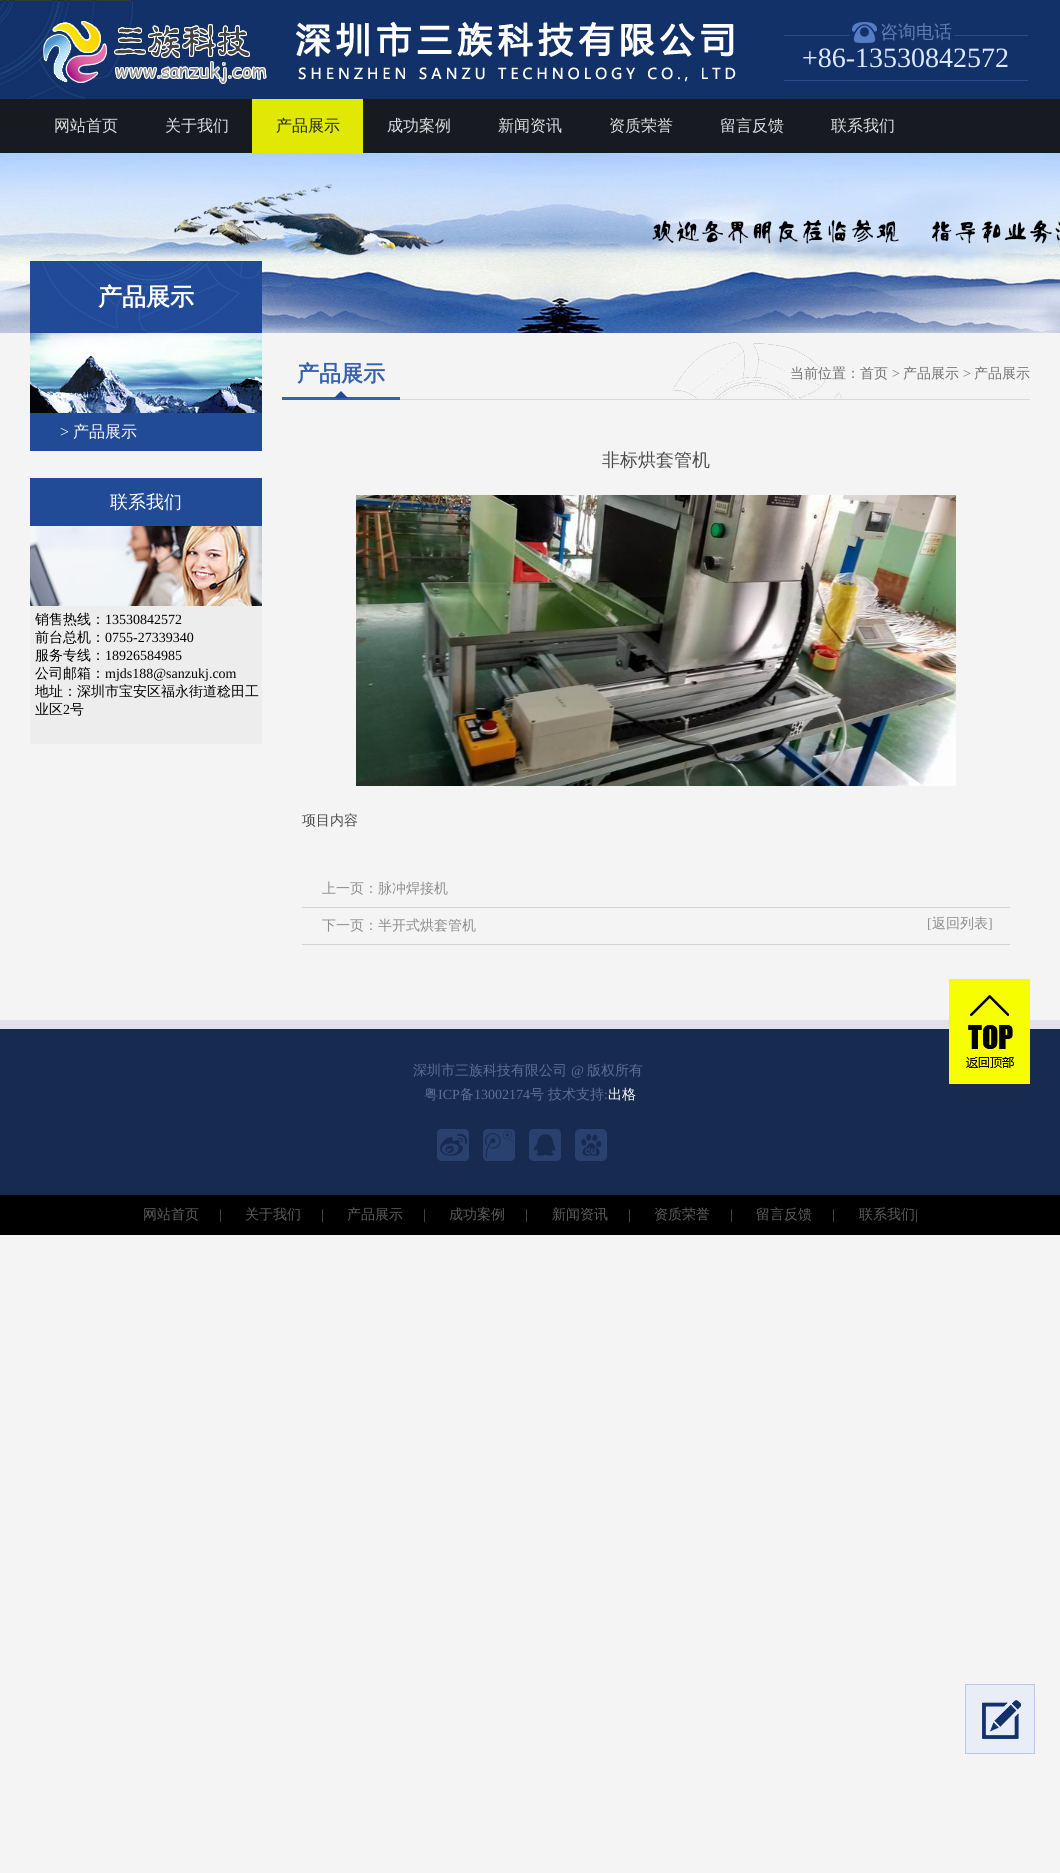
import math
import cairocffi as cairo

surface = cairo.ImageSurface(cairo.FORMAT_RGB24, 1060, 1873)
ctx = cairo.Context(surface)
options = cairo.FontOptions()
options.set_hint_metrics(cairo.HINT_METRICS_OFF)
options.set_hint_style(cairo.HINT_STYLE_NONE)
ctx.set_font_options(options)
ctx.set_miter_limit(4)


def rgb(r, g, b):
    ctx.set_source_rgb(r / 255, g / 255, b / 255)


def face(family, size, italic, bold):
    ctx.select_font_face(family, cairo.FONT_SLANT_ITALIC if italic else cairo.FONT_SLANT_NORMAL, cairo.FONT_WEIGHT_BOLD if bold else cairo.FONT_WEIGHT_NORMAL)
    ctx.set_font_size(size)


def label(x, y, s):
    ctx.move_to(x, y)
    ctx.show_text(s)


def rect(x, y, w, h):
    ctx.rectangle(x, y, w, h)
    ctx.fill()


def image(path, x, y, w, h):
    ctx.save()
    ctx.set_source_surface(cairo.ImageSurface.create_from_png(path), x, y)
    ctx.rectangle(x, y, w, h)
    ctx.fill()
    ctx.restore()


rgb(244, 244, 244)
ctx.paint()
rgb(19, 49, 105)
rect(133, 0, 927, 99)
image('image0.png', 0, 0, 133, 99)
image('image1.png', 43, 21, 693, 63)
rgb(41, 76, 142)
rect(784, 35, 244, 1)
rgb(19, 49, 105)
rect(850, 35, 104, 1)
image('image2.png', 852, 22, 25, 21)
face('WenQuanYi Zen Hei Medium', 18, 0, 0)
rgb(98, 126, 178)
label(880, 38, '咨询电话')
rgb(41, 76, 142)
rect(784, 80, 244, 1)
face('Liberation Serif', 28, 0, 0)
rgb(221, 233, 255)
label(802, 67, '+86-13530842572')
rgb(23, 27, 33)
rect(0, 99, 1060, 54)
face('WenQuanYi Zen Hei Medium', 16, 0, 0)
rgb(223, 223, 223)
label(54, 131, '网站首页')
label(165, 131, '关于我们')
rgb(224, 232, 3)
rect(252, 99, 111, 54)
rgb(31, 34, 40)
label(276, 131, '产品展示')
rgb(223, 223, 223)
label(387, 131, '成功案例')
label(498, 131, '新闻资讯')
label(609, 131, '资质荣誉')
label(720, 131, '留言反馈')
label(831, 131, '联系我们')
image('image3.png', 0, 153, 1060, 180)
image('image4.png', 30, 261, 232, 72)
face('WenQuanYi Zen Hei', 24, 0, 1)
rgb(255, 255, 255)
label(98, 305, '产品展示')
image('image5.png', 30, 333, 232, 80)
rgb(33, 74, 151)
rect(30, 413, 232, 38)
face('Liberation Serif', 16, 0, 0)
rgb(255, 255, 255)
label(60, 437, '>')
face('WenQuanYi Zen Hei Medium', 16, 0, 0)
label(73, 437, '产品展示')
rgb(33, 74, 151)
rect(30, 478, 232, 48)
face('WenQuanYi Zen Hei Medium', 18, 0, 0)
rgb(255, 255, 255)
label(110, 508, '联系我们')
image('image6.png', 30, 526, 232, 80)
rgb(237, 237, 237)
rect(30, 606, 232, 138)
face('WenQuanYi Zen Hei Medium', 14, 0, 0)
rgb(0, 0, 0)
label(35, 624, '销售热线：')
face('Liberation Serif', 14, 0, 0)
label(105, 624, '13530842572')
face('WenQuanYi Zen Hei Medium', 14, 0, 0)
label(35, 642, '前台总机：')
face('Liberation Serif', 14, 0, 0)
label(105, 642, '0755-27339340')
face('WenQuanYi Zen Hei Medium', 14, 0, 0)
label(35, 660, '服务专线：')
face('Liberation Serif', 14, 0, 0)
label(105, 660, '18926584985')
face('WenQuanYi Zen Hei Medium', 14, 0, 0)
label(35, 678, '公司邮箱：')
face('Liberation Serif', 14, 0, 0)
label(105, 678, 'mjds188@sanzukj.com')
face('WenQuanYi Zen Hei Medium', 14, 0, 0)
label(35, 696, '地址：深圳市宝安区福永街道稔田工')
label(35, 714, '业区')
face('Liberation Serif', 14, 0, 0)
label(63, 714, '2')
face('WenQuanYi Zen Hei Medium', 14, 0, 0)
label(70, 714, '号')
image('image7.png', 672, 342, 170, 57)
rgb(217, 217, 217)
rect(400, 399, 630, 1)
face('WenQuanYi Zen Hei', 22, 0, 1)
rgb(55, 96, 173)
label(297, 381, '产品展示')
face('WenQuanYi Zen Hei Medium', 14, 0, 0)
rgb(113, 113, 113)
label(790, 378, '当前位置：首页')
face('Liberation Serif', 14, 0, 0)
label(892, 378, '>')
face('WenQuanYi Zen Hei Medium', 14, 0, 0)
label(903, 378, '产品展示')
face('Liberation Serif', 14, 0, 0)
label(963, 378, '>')
face('WenQuanYi Zen Hei Medium', 14, 0, 0)
label(974, 378, '产品展示')
image('image8.png', 282, 391, 118, 9)
face('WenQuanYi Zen Hei Medium', 18, 0, 0)
rgb(75, 75, 75)
label(602, 466, '非标烘套管机')
image('image9.png', 356, 495, 600, 291)
face('WenQuanYi Zen Hei Medium', 14, 0, 0)
label(302, 825, '项目内容')
rgb(210, 210, 210)
rect(302, 907, 708, 1)
rgb(141, 141, 141)
label(322, 893, '上一页：脉冲焊接机')
rgb(210, 210, 210)
rect(302, 944, 708, 1)
rgb(141, 141, 141)
label(322, 930, '下一页：半开式烘套管机')
face('Liberation Serif', 14, 0, 0)
label(927, 928, '[')
face('WenQuanYi Zen Hei Medium', 14, 0, 0)
label(932, 928, '返回列表')
face('Liberation Serif', 14, 0, 0)
label(988, 928, ']')
rgb(23, 42, 79)
rect(0, 1029, 1060, 166)
rgb(224, 227, 233)
rect(0, 1020, 1060, 9)
face('WenQuanYi Zen Hei Medium', 14, 0, 0)
rgb(93, 111, 145)
label(413, 1075, '深圳市三族科技有限公司')
face('Liberation Serif', 14, 0, 0)
label(571, 1075, '@')
face('WenQuanYi Zen Hei Medium', 14, 0, 0)
label(587, 1075, '版权所有')
label(424, 1099, '粤')
face('Liberation Serif', 14, 0, 0)
label(438, 1099, 'ICP')
face('WenQuanYi Zen Hei Medium', 14, 0, 0)
label(460, 1099, '备')
face('Liberation Serif', 14, 0, 0)
label(474, 1099, '13002174')
face('WenQuanYi Zen Hei Medium', 14, 0, 0)
label(530, 1099, '号')
label(548, 1099, '技术支持')
face('Liberation Serif', 14, 0, 0)
label(604, 1099, ':')
face('WenQuanYi Zen Hei Medium', 14, 0, 0)
rgb(255, 255, 255)
label(608, 1099, '出格')
image('image10.png', 949, 979, 81, 105)
image('image11.png', 437, 1129, 32, 32)
image('image12.png', 483, 1129, 32, 32)
image('image13.png', 529, 1129, 32, 32)
image('image14.png', 575, 1129, 32, 32)
rgb(0, 0, 0)
rect(0, 1195, 1060, 40)
rgb(93, 93, 93)
label(143, 1219, '网站首页')
face('Liberation Serif', 14, 0, 0)
label(219, 1219, '|')
face('WenQuanYi Zen Hei Medium', 14, 0, 0)
label(245, 1219, '关于我们')
face('Liberation Serif', 14, 0, 0)
label(321, 1219, '|')
face('WenQuanYi Zen Hei Medium', 14, 0, 0)
label(347, 1219, '产品展示')
face('Liberation Serif', 14, 0, 0)
label(423, 1219, '|')
face('WenQuanYi Zen Hei Medium', 14, 0, 0)
label(449, 1219, '成功案例')
face('Liberation Serif', 14, 0, 0)
label(525, 1219, '|')
face('WenQuanYi Zen Hei Medium', 14, 0, 0)
label(552, 1219, '新闻资讯')
face('Liberation Serif', 14, 0, 0)
label(628, 1219, '|')
face('WenQuanYi Zen Hei Medium', 14, 0, 0)
label(654, 1219, '资质荣誉')
face('Liberation Serif', 14, 0, 0)
label(730, 1219, '|')
face('WenQuanYi Zen Hei Medium', 14, 0, 0)
label(756, 1219, '留言反馈')
face('Liberation Serif', 14, 0, 0)
label(832, 1219, '|')
face('WenQuanYi Zen Hei Medium', 14, 0, 0)
label(859, 1219, '联系我们')
face('Liberation Serif', 14, 0, 0)
label(915, 1219, '|')
image('image15.png', 965, 1684, 70, 70)
surface.write_to_png('render.png')
